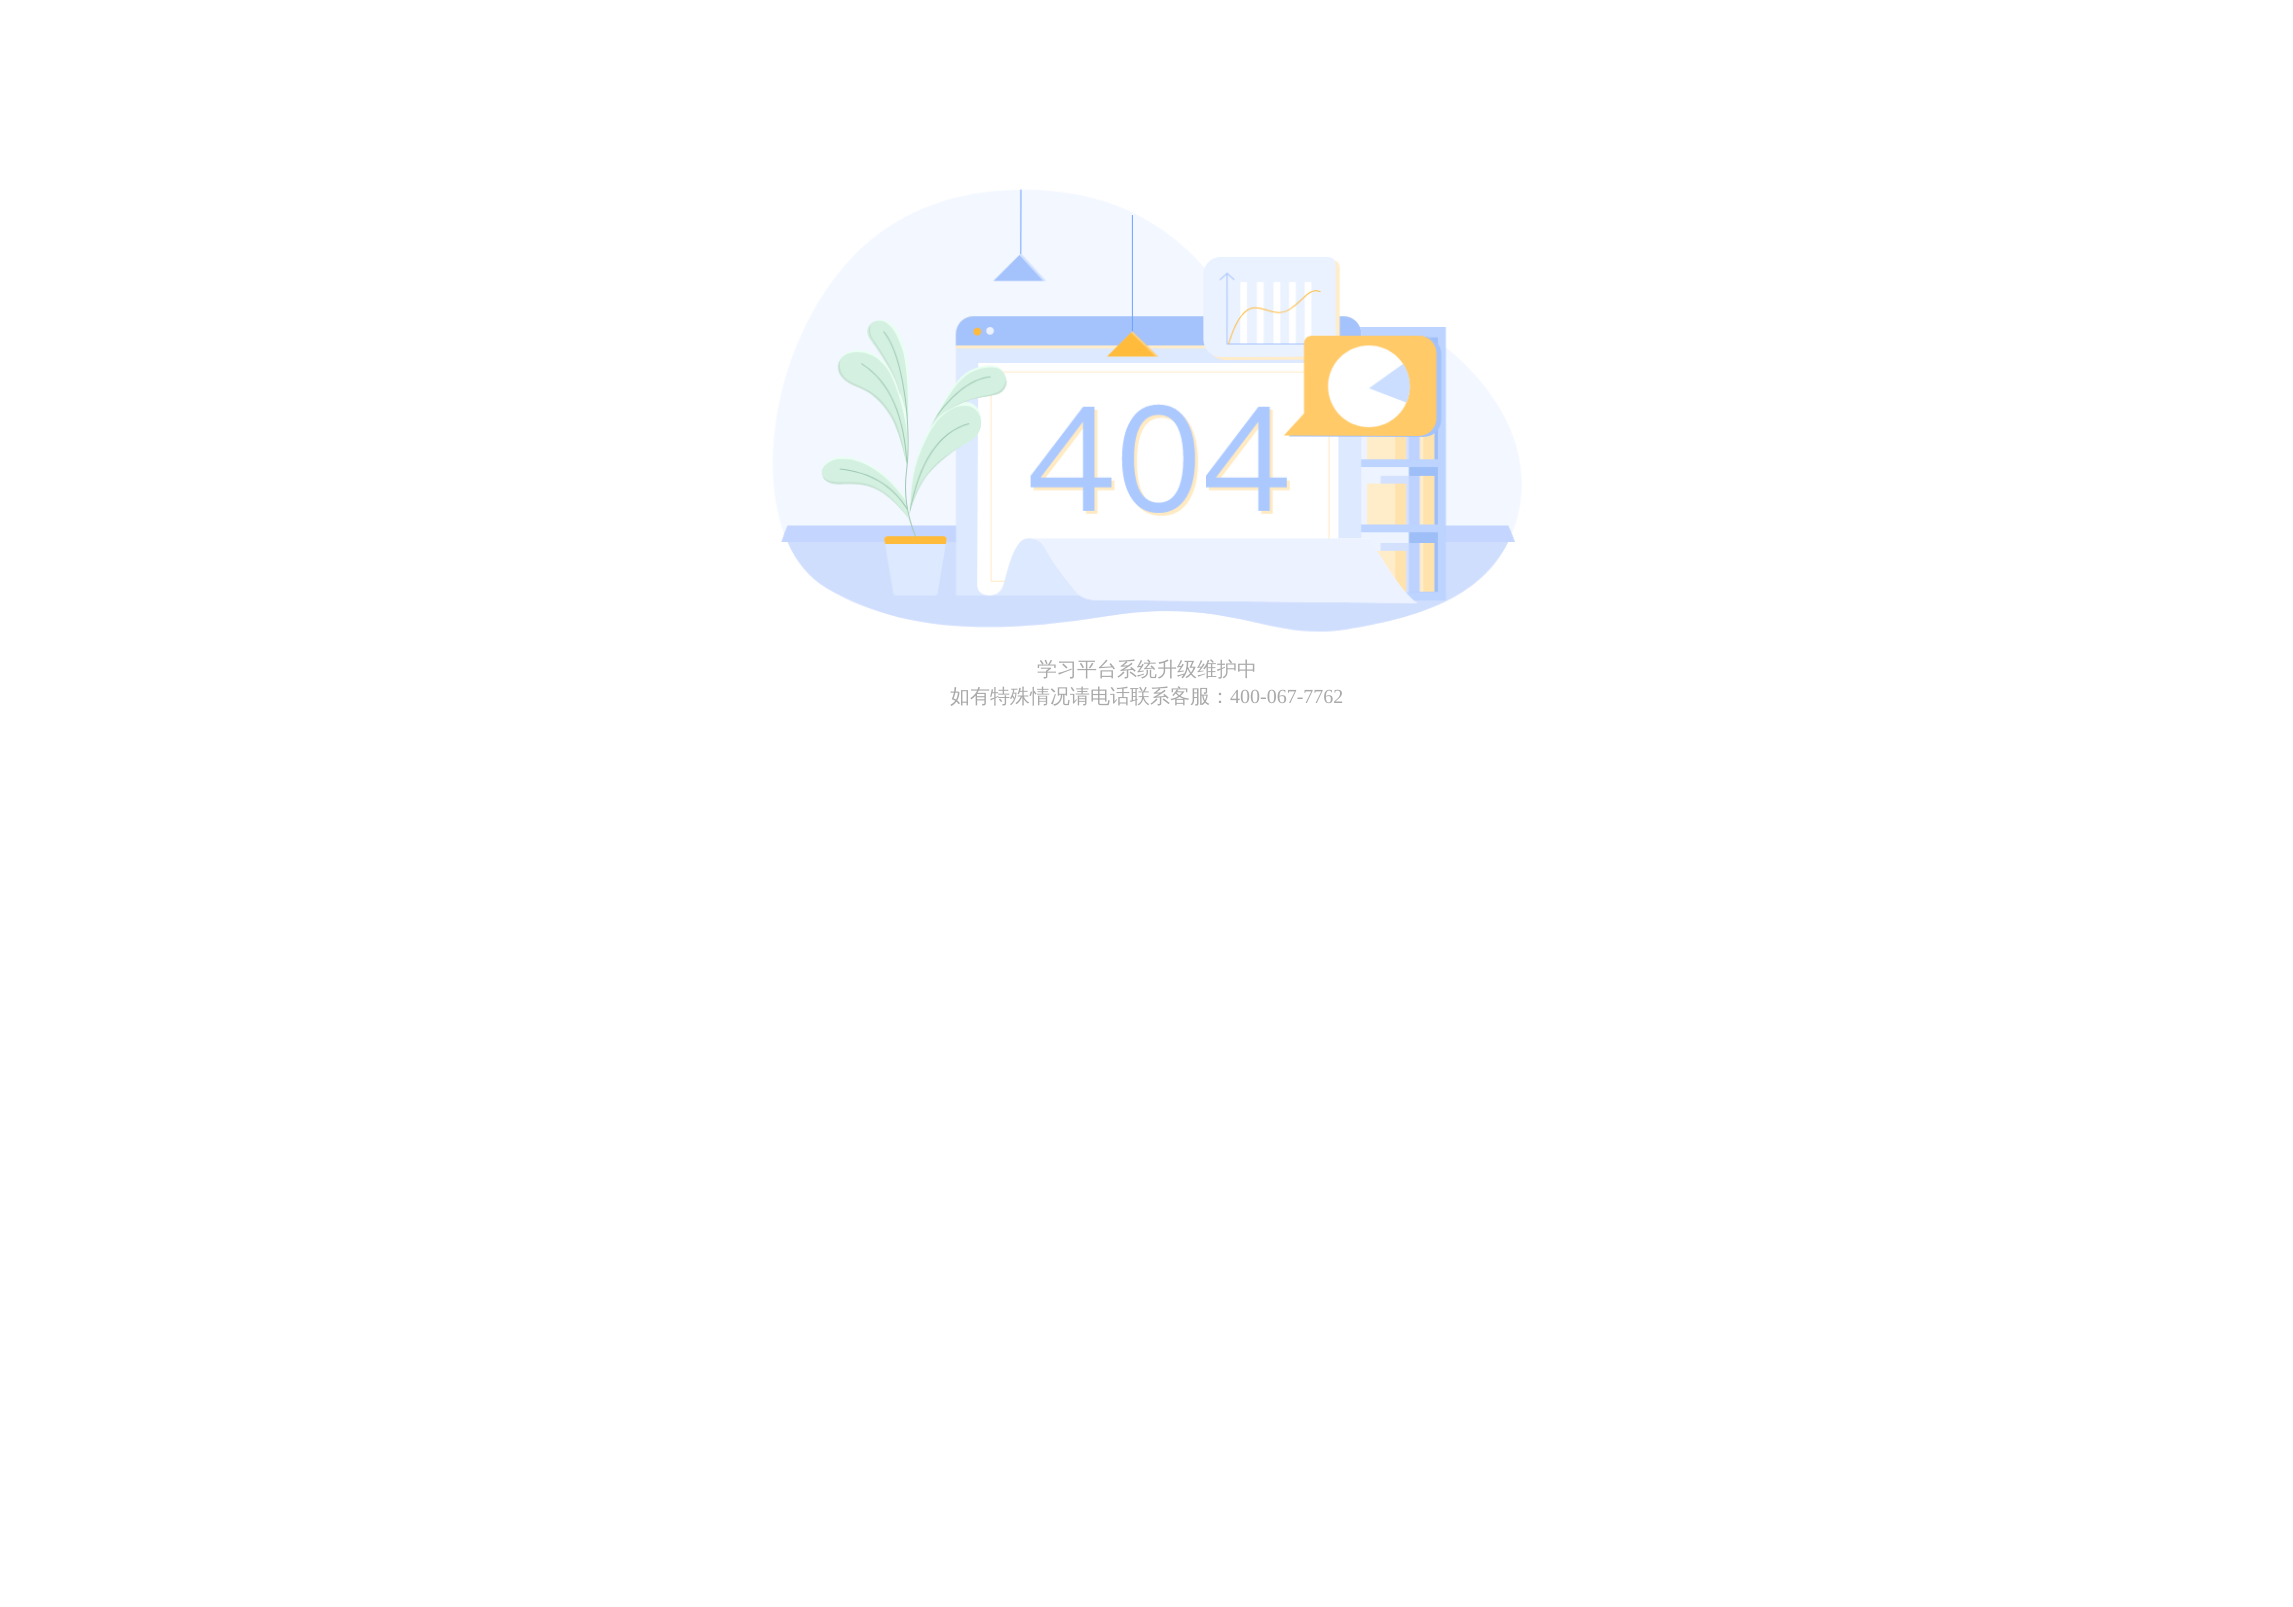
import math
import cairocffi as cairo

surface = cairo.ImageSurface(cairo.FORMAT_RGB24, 2293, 1607)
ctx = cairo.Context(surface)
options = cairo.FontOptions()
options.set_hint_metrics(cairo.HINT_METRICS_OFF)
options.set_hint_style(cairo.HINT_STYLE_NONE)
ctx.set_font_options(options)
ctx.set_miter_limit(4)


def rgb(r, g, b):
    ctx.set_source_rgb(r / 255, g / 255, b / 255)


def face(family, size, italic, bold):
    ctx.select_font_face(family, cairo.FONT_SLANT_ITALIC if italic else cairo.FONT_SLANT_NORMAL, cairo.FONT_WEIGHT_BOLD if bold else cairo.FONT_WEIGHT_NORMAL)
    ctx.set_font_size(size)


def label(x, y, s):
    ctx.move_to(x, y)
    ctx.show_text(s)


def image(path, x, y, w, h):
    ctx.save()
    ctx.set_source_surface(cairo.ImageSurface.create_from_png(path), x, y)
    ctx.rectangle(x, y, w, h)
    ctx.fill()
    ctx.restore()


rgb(255, 255, 255)
ctx.paint()
image('image0.png', 772, 188, 750, 444)
face('WenQuanYi Zen Hei Medium', 20, 0, 0)
rgb(169, 169, 169)
label(1037, 676, '学习平台系统升级维护中')
label(950, 703, '如有特殊情况请电话联系客服：')
face('Liberation Serif', 20, 0, 0)
label(1230, 703, '400-067-7762')
surface.write_to_png('render.png')
